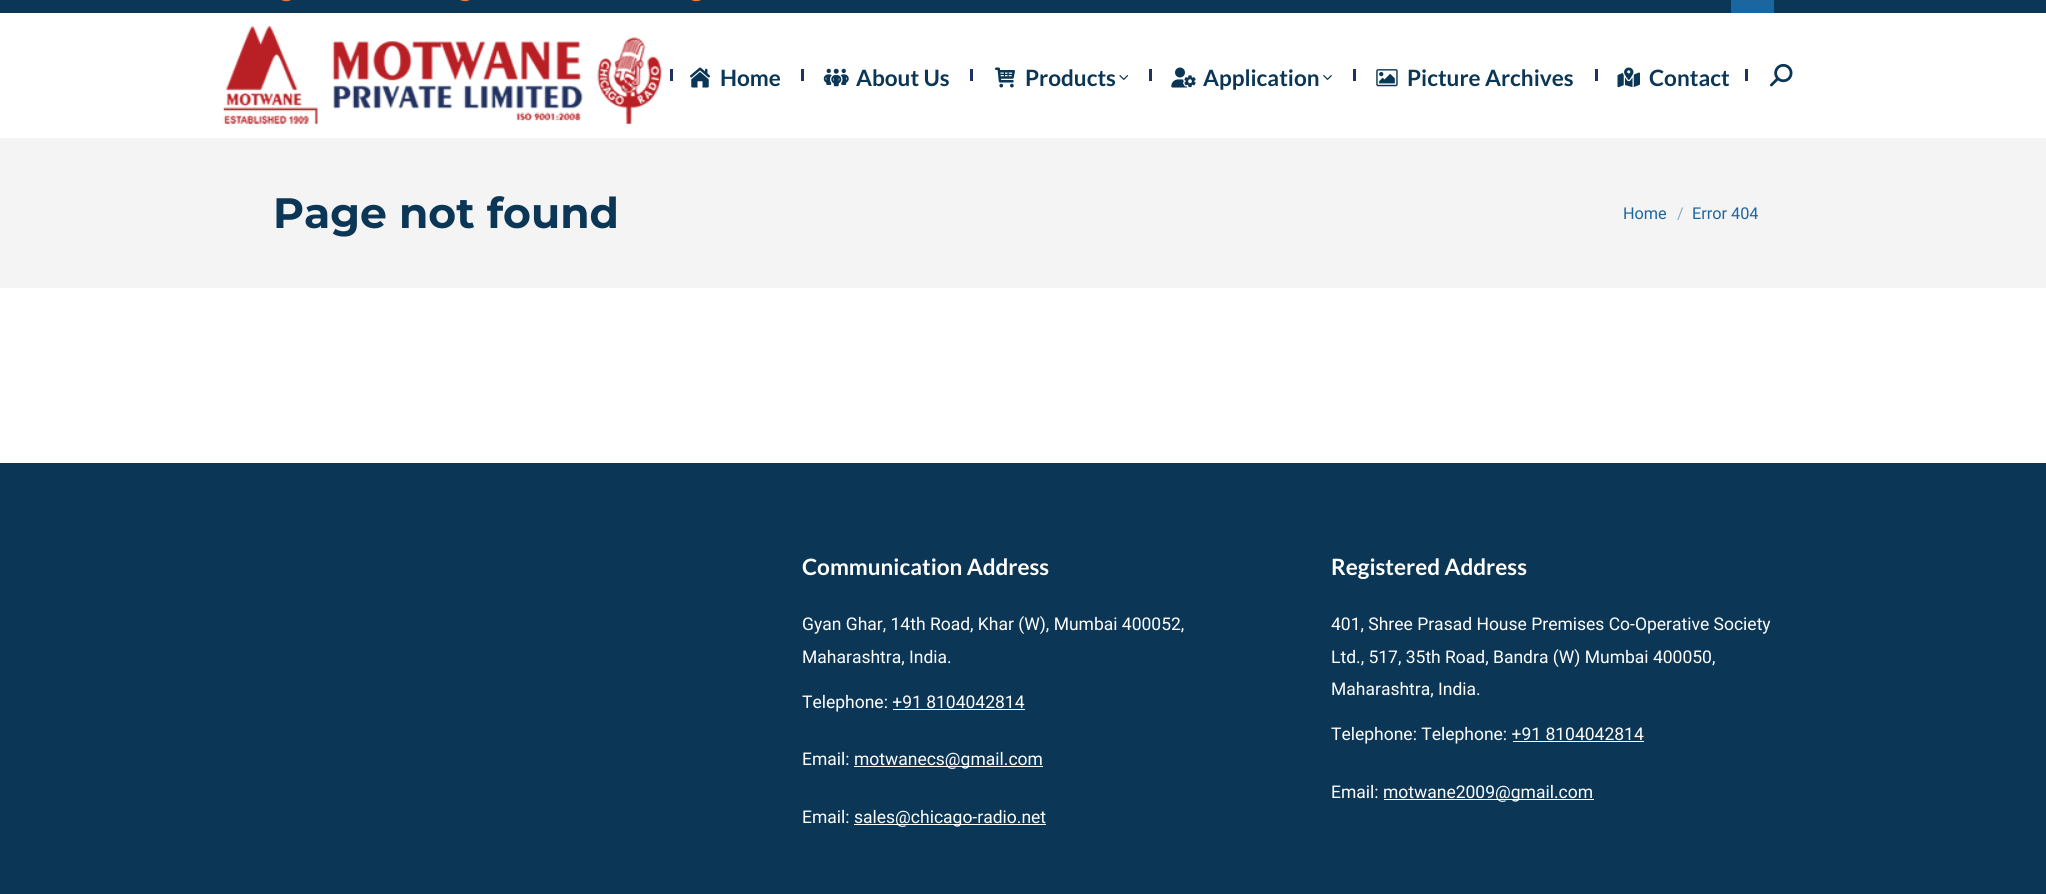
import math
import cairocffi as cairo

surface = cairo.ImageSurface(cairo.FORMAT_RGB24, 2046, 894)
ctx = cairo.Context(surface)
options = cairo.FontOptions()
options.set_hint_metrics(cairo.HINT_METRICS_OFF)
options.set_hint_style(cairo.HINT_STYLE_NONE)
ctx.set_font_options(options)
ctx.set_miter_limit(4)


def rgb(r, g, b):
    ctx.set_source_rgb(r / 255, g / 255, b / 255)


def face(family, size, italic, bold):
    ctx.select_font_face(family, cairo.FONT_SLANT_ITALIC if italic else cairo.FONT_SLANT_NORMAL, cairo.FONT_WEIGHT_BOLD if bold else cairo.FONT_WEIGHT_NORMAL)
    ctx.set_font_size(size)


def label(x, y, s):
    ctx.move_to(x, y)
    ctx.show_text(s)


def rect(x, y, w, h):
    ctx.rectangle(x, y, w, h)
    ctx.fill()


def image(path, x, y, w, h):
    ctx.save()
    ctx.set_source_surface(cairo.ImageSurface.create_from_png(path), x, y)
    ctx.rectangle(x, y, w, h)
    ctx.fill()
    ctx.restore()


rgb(255, 255, 255)
ctx.paint()
rgb(11, 54, 85)
rect(0, 0, 2046, 13)
image('image0.png', 281, 0, 10, 2)
image('image1.png', 460, 0, 10, 2)
image('image0.png', 691, 0, 10, 2)
rgb(28, 102, 160)
rect(1731, 0, 43, 13)
image('image2.png', 223, 26, 439, 98)
rgb(34, 50, 96)
rect(670, 69, 3, 12)
image('image3.png', 690, 67, 20, 21)
face('Lato', 22.5, 0, 1)
rgb(11, 54, 85)
label(720, 86, 'Home')
rgb(34, 50, 96)
rect(801, 69, 3, 12)
image('image4.png', 823, 68, 26, 19)
rgb(11, 54, 85)
label(856, 86, 'About Us')
rgb(34, 50, 96)
rect(970, 69, 3, 12)
image('image5.png', 995, 67, 20, 21)
rgb(11, 54, 85)
label(1025, 86, 'Products')
image('image6.png', 1119, 75, 10, 5)
rgb(34, 50, 96)
rect(1149, 69, 3, 12)
image('image7.png', 1171, 67, 25, 21)
rgb(11, 54, 85)
label(1203, 86, 'Application')
image('image8.png', 1323, 75, 9, 5)
rgb(34, 50, 96)
rect(1353, 69, 3, 12)
image('image9.png', 1376, 69, 22, 18)
rgb(11, 54, 85)
label(1407, 86, 'Picture Archives')
rgb(34, 50, 96)
rect(1595, 69, 3, 12)
image('image10.png', 1617, 67, 23, 21)
rgb(11, 54, 85)
label(1649, 86, 'Contact')
rgb(34, 50, 96)
rect(1745, 69, 3, 12)
image('image11.png', 1770, 63, 23, 24)
rgb(244, 244, 244)
rect(0, 138, 2046, 150)
face('Montserrat', 42.5, 0, 1)
rgb(11, 54, 85)
label(273, 228, 'Page not found')
face('Roboto', 16.25, 0, 0)
rgb(28, 102, 160)
label(1623, 219, 'Home')
rgb(136, 173, 202)
label(1677, 219, '/')
rgb(28, 102, 160)
label(1692, 219, 'Error 404')
rgb(11, 54, 85)
rect(0, 463, 2046, 431)
face('Lato', 22.5, 0, 1)
rgb(255, 255, 255)
label(802, 575, 'Communication Address')
face('Roboto', 17.5, 0, 0)
label(802, 630, 'Gyan Ghar, 14th Road, Khar (W), Mumbai 400052,')
label(802, 663, 'Maharashtra, India.')
label(802, 708, 'Telephone: +91 8104042814')
rect(893, 709, 132, 1)
label(802, 765, 'Email:')
rect(854, 766, 189, 1)
label(854, 765, 'motwanecs@gmail.com')
label(802, 823, 'Email:')
rect(854, 824, 192, 1)
label(854, 823, 'sales@chicago-radio.net')
face('Lato', 22.5, 0, 1)
label(1331, 575, 'Registered Address')
face('Roboto', 17.5, 0, 0)
label(1331, 630, '401, Shree Prasad House Premises Co-Operative Society')
label(1331, 663, 'Ltd., 517, 35th Road, Bandra (W) Mumbai 400050,')
label(1331, 695, 'Maharashtra, India.')
label(1331, 740, 'Telephone: Telephone: +91 8104042814')
rect(1513, 741, 131, 1)
label(1331, 798, 'Email:')
rect(1384, 799, 210, 1)
label(1383, 798, 'motwane2009@gmail.com')
surface.write_to_png('render.png')
